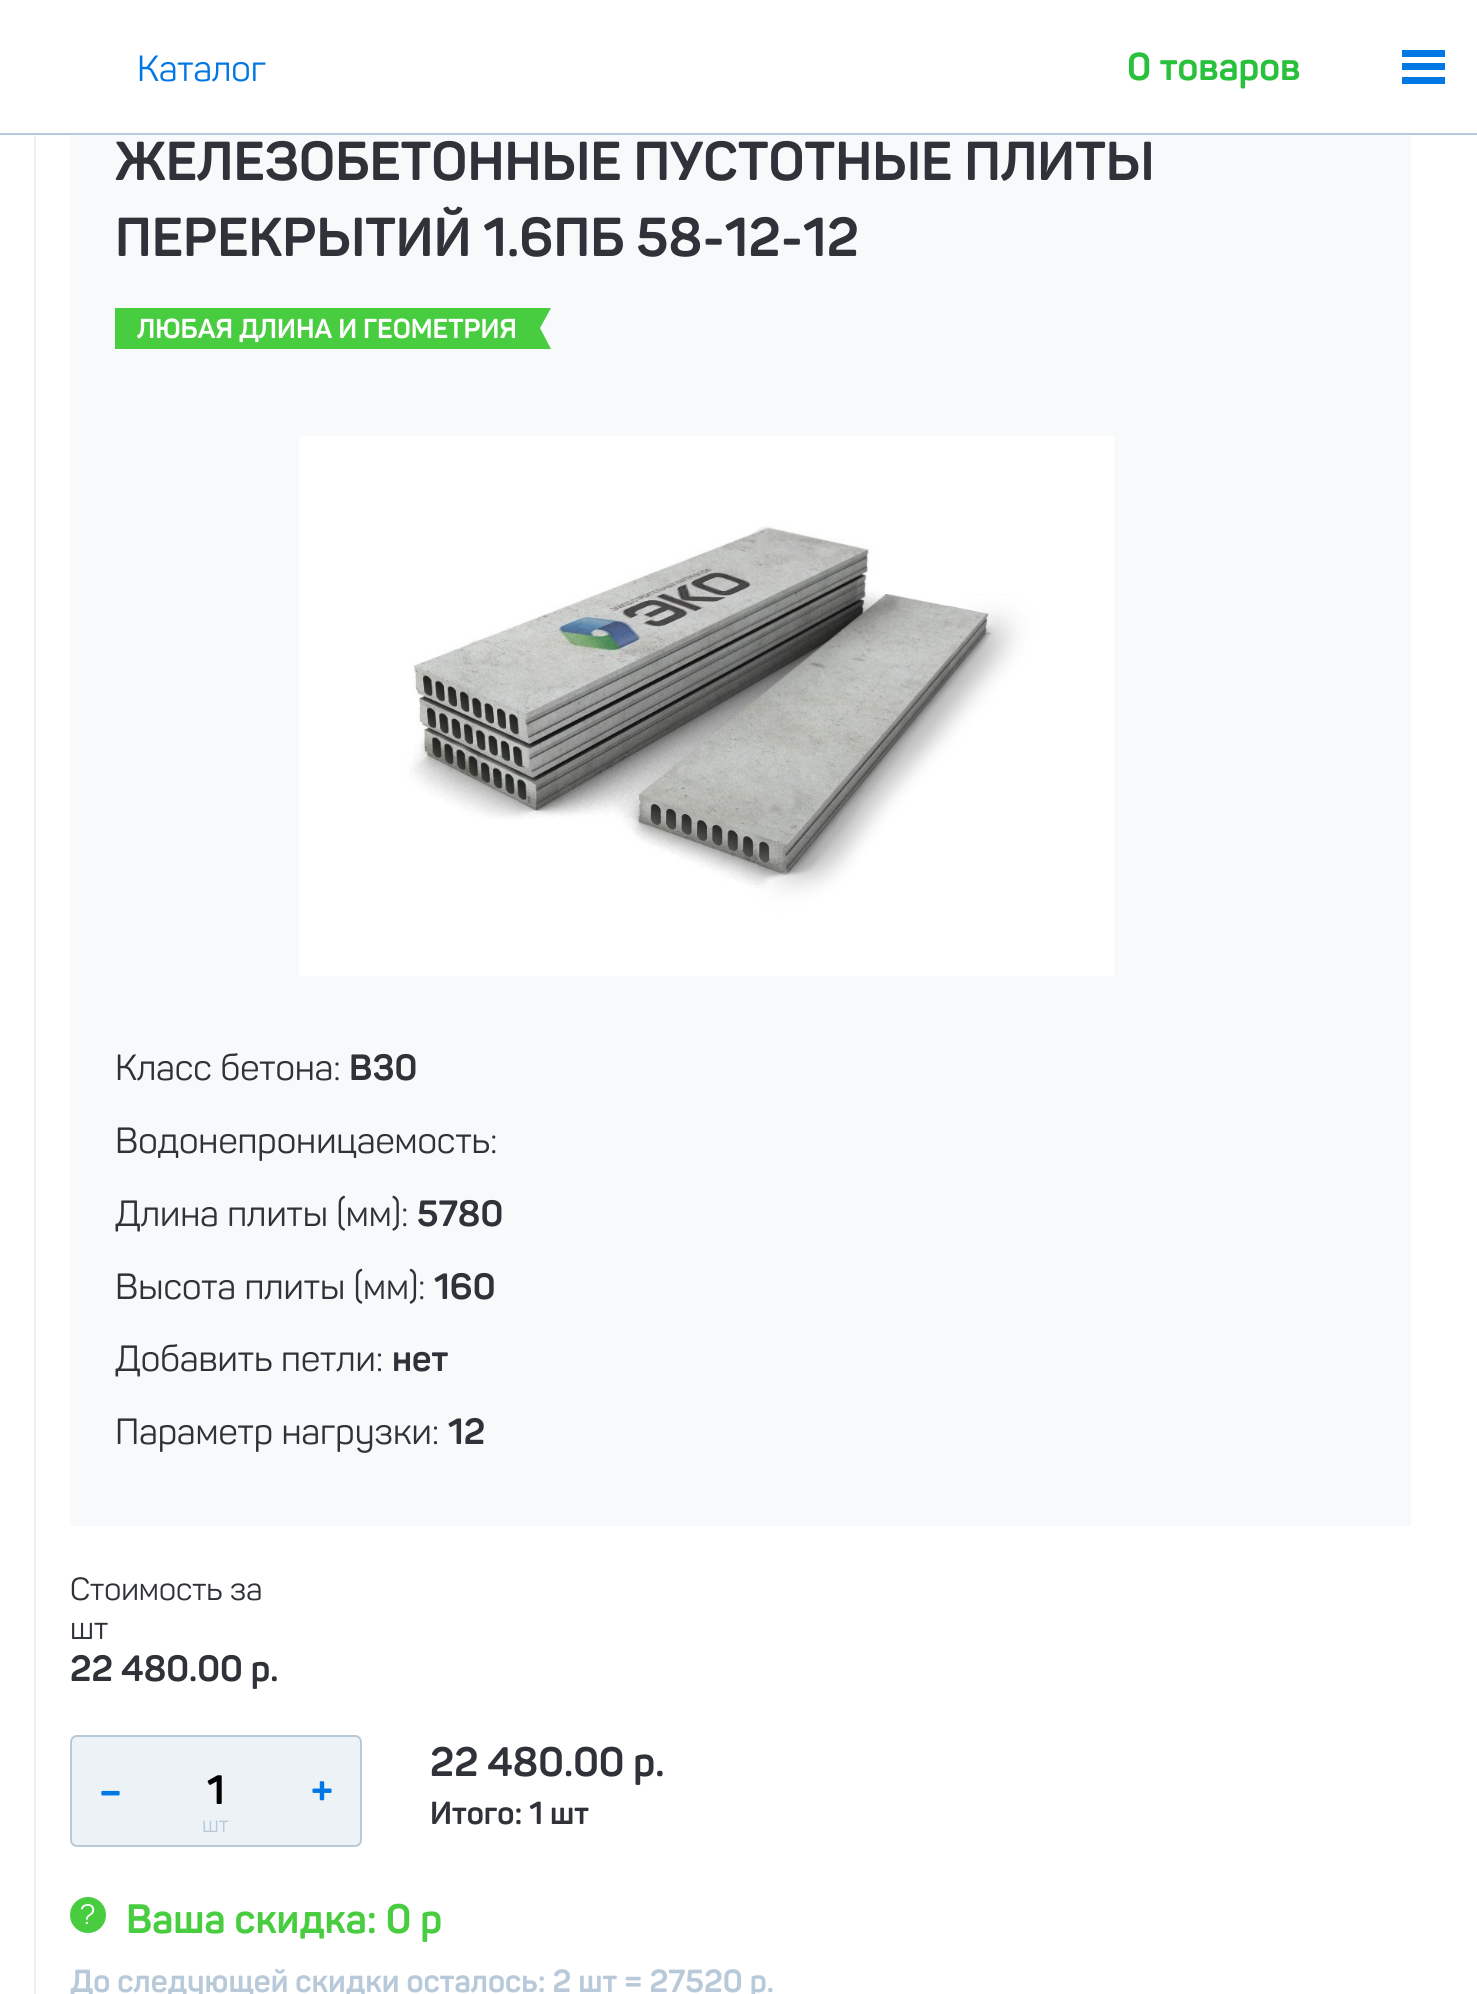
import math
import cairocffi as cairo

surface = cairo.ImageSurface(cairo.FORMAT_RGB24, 1477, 1994)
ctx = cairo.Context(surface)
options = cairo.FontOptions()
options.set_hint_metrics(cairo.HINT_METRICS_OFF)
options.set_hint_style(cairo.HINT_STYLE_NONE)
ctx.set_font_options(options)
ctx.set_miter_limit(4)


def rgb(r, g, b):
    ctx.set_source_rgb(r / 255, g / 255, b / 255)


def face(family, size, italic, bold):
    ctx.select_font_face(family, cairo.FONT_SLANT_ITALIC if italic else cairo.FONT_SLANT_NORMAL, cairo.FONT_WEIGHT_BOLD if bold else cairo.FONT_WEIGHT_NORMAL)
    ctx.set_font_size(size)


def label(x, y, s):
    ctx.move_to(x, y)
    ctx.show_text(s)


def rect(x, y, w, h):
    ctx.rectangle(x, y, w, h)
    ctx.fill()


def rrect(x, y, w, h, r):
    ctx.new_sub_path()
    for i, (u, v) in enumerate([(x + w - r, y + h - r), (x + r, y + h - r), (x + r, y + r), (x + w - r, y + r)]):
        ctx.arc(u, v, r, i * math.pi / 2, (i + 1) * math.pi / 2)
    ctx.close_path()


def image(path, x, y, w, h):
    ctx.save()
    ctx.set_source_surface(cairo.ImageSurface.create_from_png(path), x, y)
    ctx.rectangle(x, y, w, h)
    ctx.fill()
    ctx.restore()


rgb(255, 255, 255)
ctx.paint()
rgb(184, 201, 218)
rect(0, 133, 1477, 2)
face('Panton', 36, 0, 0)
rgb(0, 119, 226)
label(137, 81, 'Каталог')
face('Panton', 38.25, 0, 1)
rgb(41, 193, 60)
label(1127, 80, '0 товаров')
rgb(0, 119, 226)
rect(1402, 50, 43, 7)
rect(1402, 63, 43, 7)
rect(1402, 77, 43, 7)
rgb(237, 242, 247)
rect(34, 135, 2, 1859)
rgb(247, 249, 251)
rect(70, 135, 1341, 1391)
face('Panton', 54, 0, 1)
rgb(47, 50, 56)
label(115, 180, 'ЖЕЛЕЗОБЕТОННЫЕ ПУСТОТНЫЕ ПЛИТЫ')
label(115, 256, 'ПЕРЕКРЫТИЙ 1.6ПБ 58-12-12')
rgb(73, 205, 64)
rect(115, 308, 436, 41)
face('Panton', 27, 0, 1)
rgb(255, 255, 255)
label(137, 338, 'ЛЮБАЯ ДЛИНА И ГЕОМЕТРИЯ')
rgb(247, 249, 251)
ctx.new_path()
ctx.move_to(551, 308)
ctx.line_to(551, 349)
ctx.line_to(540, 328)
ctx.close_path()
ctx.fill()
image('image0.png', 299, 436, 815, 540)
face('Panton', 36, 0, 0)
rgb(47, 50, 56)
label(115, 1080, 'Класс бетона:')
face('Panton', 36, 0, 1)
label(349, 1080, 'B30')
face('Panton', 36, 0, 0)
label(115, 1153, 'Водонепроницаемость:')
label(115, 1226, 'Длина плиты (мм):')
face('Panton', 36, 0, 1)
label(417, 1226, '5780')
face('Panton', 36, 0, 0)
label(115, 1299, 'Высота плиты (мм):')
face('Panton', 36, 0, 1)
label(434, 1299, '160')
face('Panton', 36, 0, 0)
label(115, 1371, 'Добавить петли:')
face('Panton', 36, 0, 1)
label(392, 1371, 'нет')
face('Panton', 36, 0, 0)
label(115, 1444, 'Параметр нагрузки:')
face('Panton', 36, 0, 1)
label(448, 1444, '12')
face('Panton', 31.5, 0, 0)
label(70, 1600, 'Стоимость за')
label(70, 1639, 'шт')
face('Panton', 36, 0, 1)
label(70, 1681, '22 480.00 р.')
rgb(237, 242, 247)
rrect(71, 1736, 290, 110, 6)
ctx.fill_preserve()
rgb(184, 201, 218)
ctx.stroke()
face('Panton', 40.5, 0, 1)
rgb(0, 119, 226)
label(99, 1804, '–')
rgb(0, 0, 0)
label(207, 1804, '1')
rgb(0, 119, 226)
label(311, 1804, '+')
face('Panton', 22, 0, 0)
rgb(184, 201, 218)
label(202, 1832, 'шт')
face('Panton', 40.5, 0, 1)
rgb(47, 50, 56)
label(430, 1776, '22 480.00 р.')
face('Panton', 31.5, 0, 1)
label(430, 1824, 'Итого: 1 шт')
rgb(73, 205, 64)
ctx.new_path()
ctx.arc(88, 1915, 18, 0, 2 * math.pi)
ctx.fill()
face('Panton', 27, 0, 0)
rgb(255, 255, 255)
label(80, 1924, '?')
face('Panton', 40.5, 0, 1)
rgb(73, 205, 64)
label(126, 1933, 'Ваша скидка: 0 р')
face('Panton', 31.5, 0, 1)
rgb(184, 201, 218)
label(70, 1992, 'До следующей скидки осталось: 2 шт = 27520 р.')
surface.write_to_png('render.png')
